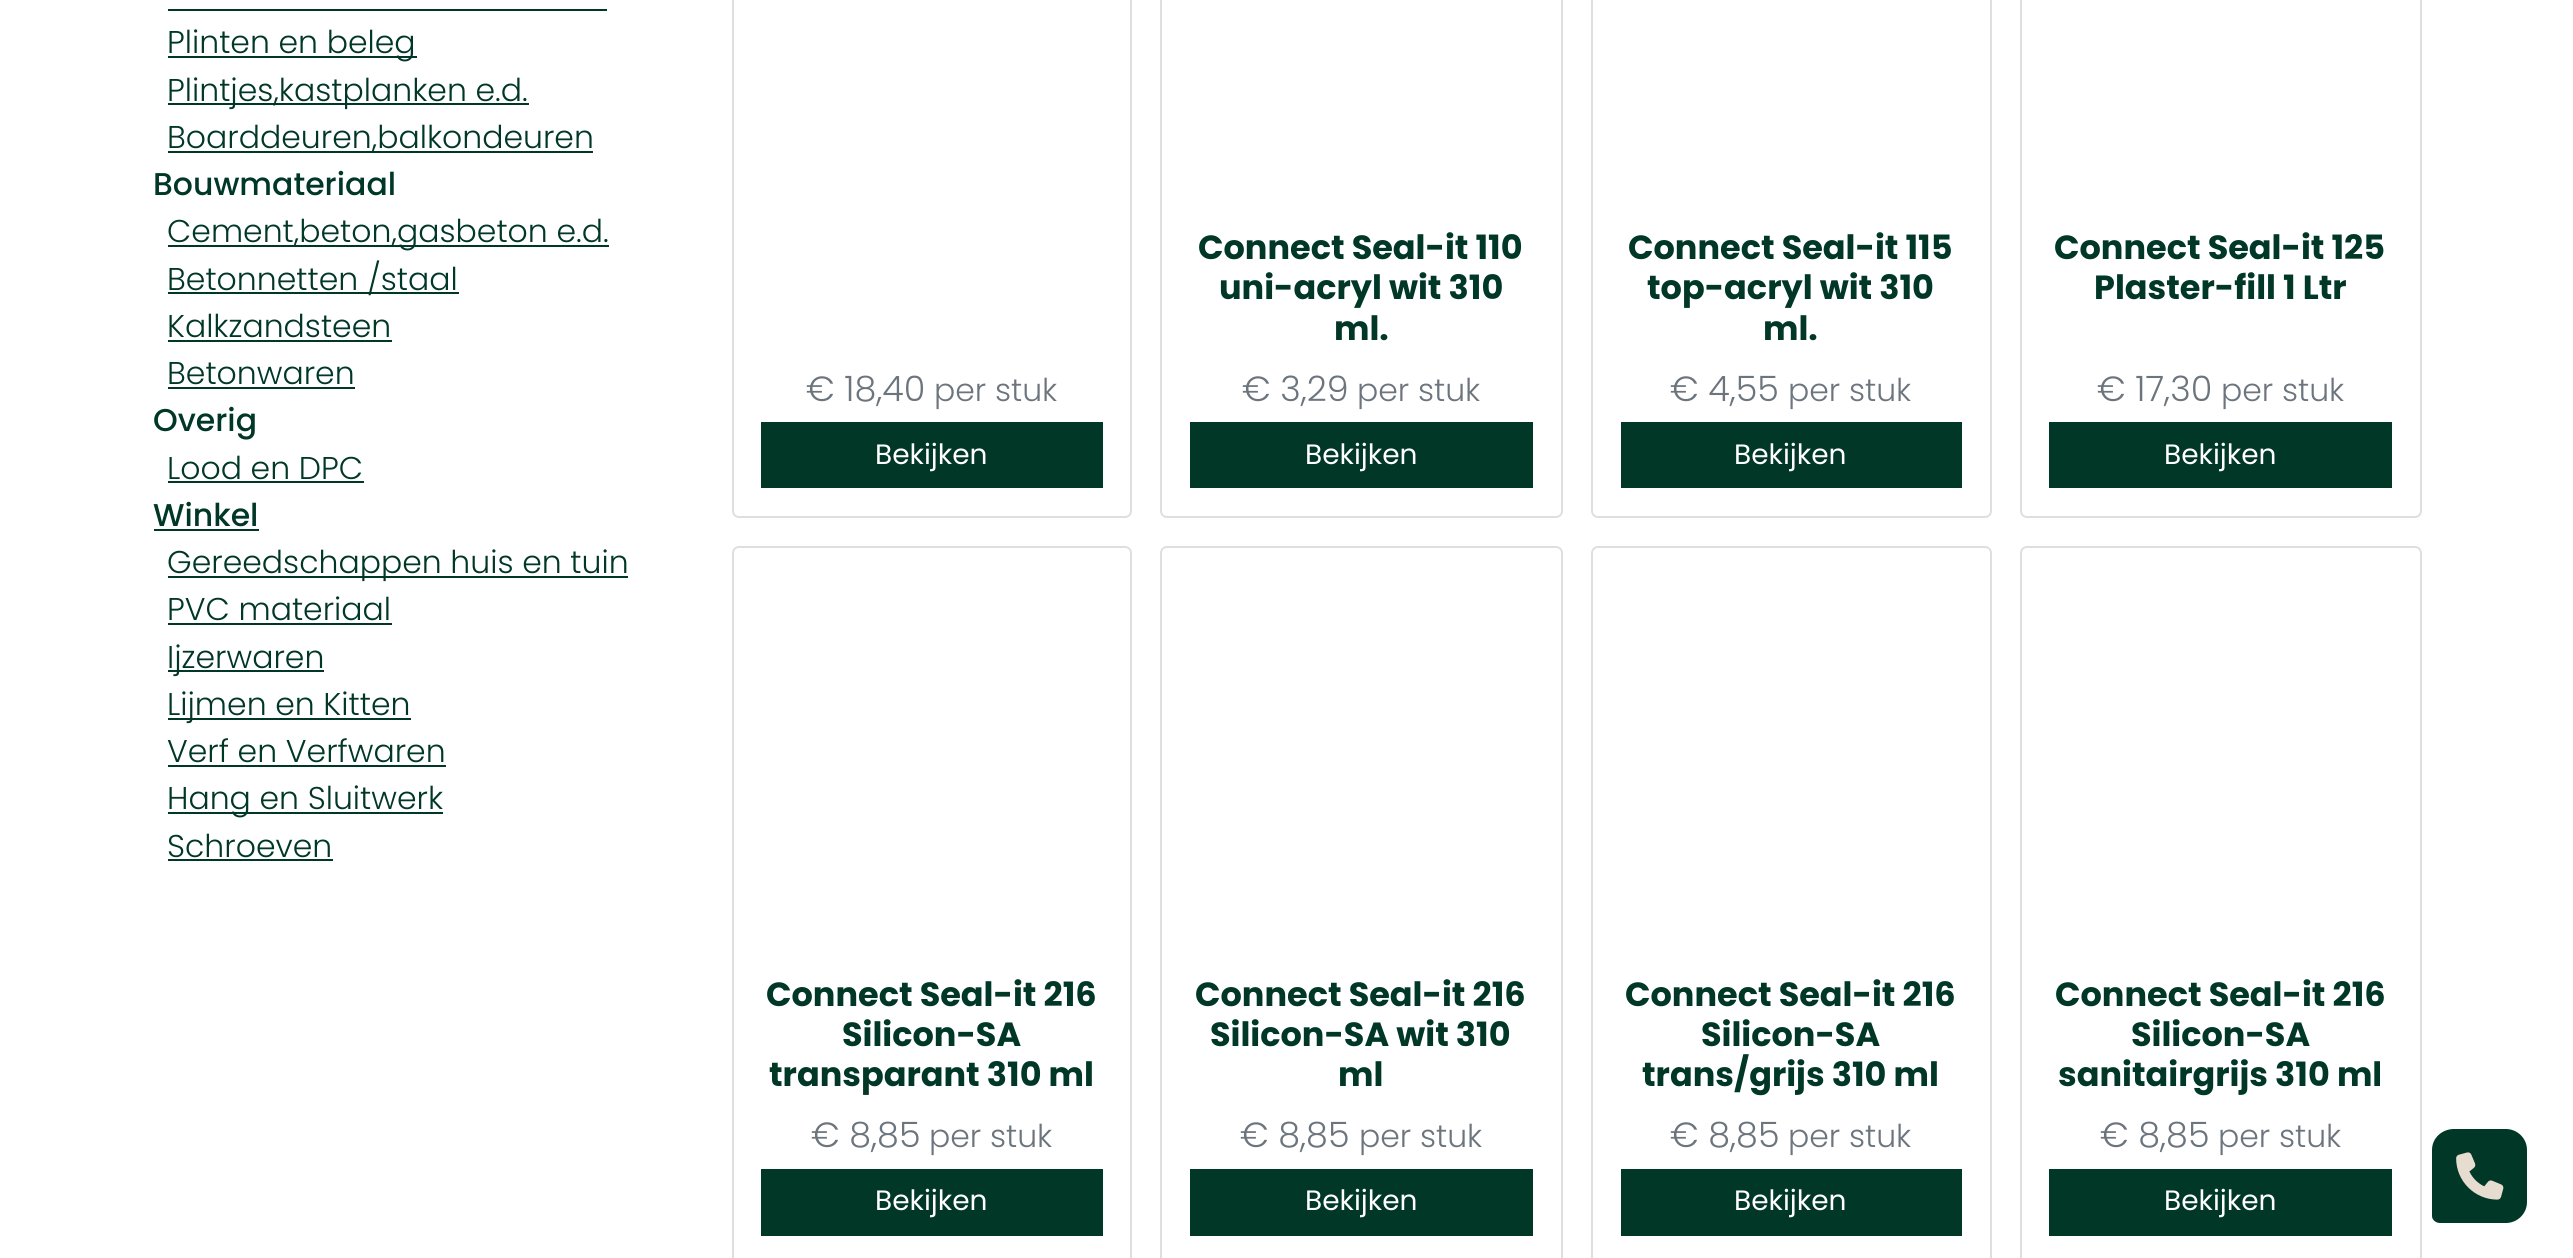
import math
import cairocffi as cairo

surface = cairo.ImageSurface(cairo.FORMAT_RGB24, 2573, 1258)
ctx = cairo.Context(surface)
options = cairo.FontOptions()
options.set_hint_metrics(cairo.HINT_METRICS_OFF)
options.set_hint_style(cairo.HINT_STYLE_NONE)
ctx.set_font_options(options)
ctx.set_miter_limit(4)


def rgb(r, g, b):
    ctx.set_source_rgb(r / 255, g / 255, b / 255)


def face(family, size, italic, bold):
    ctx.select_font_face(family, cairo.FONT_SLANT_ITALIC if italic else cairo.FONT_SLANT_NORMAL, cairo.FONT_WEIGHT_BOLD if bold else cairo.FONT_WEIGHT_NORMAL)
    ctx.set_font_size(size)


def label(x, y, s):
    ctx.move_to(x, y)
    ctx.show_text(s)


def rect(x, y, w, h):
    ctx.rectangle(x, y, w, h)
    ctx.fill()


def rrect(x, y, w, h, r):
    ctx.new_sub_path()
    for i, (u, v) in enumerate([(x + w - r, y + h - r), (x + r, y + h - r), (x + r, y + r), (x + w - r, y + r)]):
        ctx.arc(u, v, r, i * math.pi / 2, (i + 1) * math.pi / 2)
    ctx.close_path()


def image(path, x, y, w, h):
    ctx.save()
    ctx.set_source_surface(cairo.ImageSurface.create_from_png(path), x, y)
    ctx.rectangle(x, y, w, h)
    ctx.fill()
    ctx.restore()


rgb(255, 255, 255)
ctx.paint()
rgb(0, 55, 39)
rect(168, 9, 439, 2)
rect(168, 56, 249, 2)
face('Poppins Light', 31.5, 0, 0)
label(167, 53, 'Plinten en beleg')
rect(168, 103, 361, 2)
label(167, 101, 'Plintjes,kastplanken e.d.')
rect(168, 151, 425, 2)
label(167, 148, 'Boarddeuren,balkondeuren')
face('Poppins Medium', 31.5, 0, 0)
label(153, 195, 'Bouwmateriaal')
rect(168, 245, 441, 2)
face('Poppins Light', 31.5, 0, 0)
label(167, 242, 'Cement,beton,gasbeton e.d.')
rect(168, 292, 291, 2)
label(167, 290, 'Betonnetten /staal')
label(167, 337, 'Kalkzandsteen')
rect(168, 340, 224, 2)
label(167, 384, 'Betonwaren')
rect(168, 387, 187, 2)
face('Poppins Medium', 31.5, 0, 0)
label(153, 431, 'Overig')
face('Poppins Light', 31.5, 0, 0)
label(167, 479, 'Lood en DPC')
rect(168, 481, 196, 2)
face('Poppins Medium', 31.5, 0, 0)
label(153, 526, 'Winkel')
rect(154, 529, 105, 2)
rect(168, 576, 460, 2)
face('Poppins Light', 31.5, 0, 0)
label(167, 573, 'Gereedschappen huis en tuin')
label(167, 620, 'PVC materiaal')
rect(168, 623, 224, 2)
rect(168, 670, 156, 2)
label(167, 668, 'Ijzerwaren')
rect(168, 718, 243, 2)
label(167, 715, 'Lijmen en Kitten')
label(167, 762, 'Verf en Verfwaren')
rect(168, 765, 278, 2)
rect(168, 812, 275, 2)
label(167, 809, 'Hang en Sluitwerk')
label(167, 857, 'Schroeven')
rect(168, 859, 165, 2)
rrect(733, -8, 398, 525, 6)
rgb(223, 223, 223)
ctx.stroke()
face('Poppins Light', 35, 0, 0)
rgb(108, 117, 125)
label(806, 401, '€ 18,40')
face('Poppins Light', 31.5, 0, 0)
label(934, 401, 'per stuk')
rgb(0, 55, 39)
rect(761, 422, 342, 66)
face('Poppins', 28, 0, 0)
rgb(255, 255, 255)
label(875, 464, 'Bekijken')
rrect(1161, -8, 401, 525, 6)
rgb(223, 223, 223)
ctx.stroke()
face('Poppins', 33.5, 0, 1)
rgb(0, 55, 39)
label(1198, 259, 'Connect Seal-it 110')
label(1219, 299, 'uni-acryl wit 310')
label(1334, 340, 'ml.')
face('Poppins Light', 35, 0, 0)
rgb(108, 117, 125)
label(1242, 401, '€ 3,29')
face('Poppins Light', 31.5, 0, 0)
label(1357, 401, 'per stuk')
rgb(0, 55, 39)
rect(1190, 422, 343, 66)
face('Poppins', 28, 0, 0)
rgb(255, 255, 255)
label(1305, 464, 'Bekijken')
rrect(1592, -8, 399, 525, 6)
rgb(223, 223, 223)
ctx.stroke()
face('Poppins', 33.5, 0, 1)
rgb(0, 55, 39)
label(1628, 259, 'Connect Seal-it 115')
label(1647, 299, 'top-acryl wit 310')
label(1763, 340, 'ml.')
face('Poppins Light', 35, 0, 0)
rgb(108, 117, 125)
label(1670, 401, '€ 4,55')
face('Poppins Light', 31.5, 0, 0)
label(1788, 401, 'per stuk')
rgb(0, 55, 39)
rect(1621, 422, 341, 66)
face('Poppins', 28, 0, 0)
rgb(255, 255, 255)
label(1734, 464, 'Bekijken')
rrect(2021, -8, 400, 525, 6)
rgb(223, 223, 223)
ctx.stroke()
face('Poppins', 33.5, 0, 1)
rgb(0, 55, 39)
label(2054, 259, 'Connect Seal-it 125')
label(2094, 299, 'Plaster-fill 1 Ltr')
face('Poppins Light', 35, 0, 0)
rgb(108, 117, 125)
label(2097, 401, '€ 17,30')
face('Poppins Light', 31.5, 0, 0)
label(2221, 401, 'per stuk')
rgb(0, 55, 39)
rect(2049, 422, 343, 66)
face('Poppins', 28, 0, 0)
rgb(255, 255, 255)
label(2164, 464, 'Bekijken')
rrect(733, 547, 398, 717, 6)
rgb(223, 223, 223)
ctx.stroke()
face('Poppins', 33.5, 0, 1)
rgb(0, 55, 39)
label(766, 1006, 'Connect Seal-it 216')
label(842, 1046, 'Silicon-SA')
label(769, 1086, 'transparant 310 ml')
face('Poppins Light', 35, 0, 0)
rgb(108, 117, 125)
label(811, 1147, '€ 8,85')
face('Poppins Light', 31.5, 0, 0)
label(929, 1147, 'per stuk')
rgb(0, 55, 39)
rect(761, 1169, 342, 67)
face('Poppins', 28, 0, 0)
rgb(255, 255, 255)
label(875, 1210, 'Bekijken')
rrect(1161, 547, 401, 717, 6)
rgb(223, 223, 223)
ctx.stroke()
face('Poppins', 33.5, 0, 1)
rgb(0, 55, 39)
label(1195, 1006, 'Connect Seal-it 216')
label(1210, 1046, 'Silicon-SA wit 310')
label(1338, 1086, 'ml')
face('Poppins Light', 35, 0, 0)
rgb(108, 117, 125)
label(1240, 1147, '€ 8,85')
face('Poppins Light', 31.5, 0, 0)
label(1359, 1147, 'per stuk')
rgb(0, 55, 39)
rect(1190, 1169, 343, 67)
face('Poppins', 28, 0, 0)
rgb(255, 255, 255)
label(1305, 1210, 'Bekijken')
rrect(1592, 547, 399, 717, 6)
rgb(223, 223, 223)
ctx.stroke()
face('Poppins', 33.5, 0, 1)
rgb(0, 55, 39)
label(1625, 1006, 'Connect Seal-it 216')
label(1701, 1046, 'Silicon-SA')
label(1642, 1086, 'trans/grijs 310 ml')
face('Poppins Light', 35, 0, 0)
rgb(108, 117, 125)
label(1670, 1147, '€ 8,85')
face('Poppins Light', 31.5, 0, 0)
label(1788, 1147, 'per stuk')
rgb(0, 55, 39)
rect(1621, 1169, 341, 67)
face('Poppins', 28, 0, 0)
rgb(255, 255, 255)
label(1734, 1210, 'Bekijken')
rrect(2021, 547, 400, 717, 6)
rgb(223, 223, 223)
ctx.stroke()
face('Poppins', 33.5, 0, 1)
rgb(0, 55, 39)
label(2055, 1006, 'Connect Seal-it 216')
label(2131, 1046, 'Silicon-SA')
label(2058, 1086, 'sanitairgrijs 310 ml')
face('Poppins Light', 35, 0, 0)
rgb(108, 117, 125)
label(2100, 1147, '€ 8,85')
face('Poppins Light', 31.5, 0, 0)
label(2218, 1147, 'per stuk')
rgb(0, 55, 39)
rect(2049, 1169, 343, 67)
face('Poppins', 28, 0, 0)
rgb(255, 255, 255)
label(2164, 1210, 'Bekijken')
rgb(0, 55, 39)
ctx.new_path()
ctx.move_to(2506, 1223)
ctx.line_to(2440, 1223)
ctx.curve_to(2436, 1223, 2432, 1220, 2432, 1216)
ctx.line_to(2432, 1150)
ctx.curve_to(2432, 1138, 2442, 1129, 2454, 1129)
ctx.line_to(2506, 1129)
ctx.curve_to(2517, 1129, 2527, 1138, 2527, 1150)
ctx.line_to(2527, 1202)
ctx.curve_to(2527, 1214, 2517, 1223, 2506, 1223)
ctx.close_path()
ctx.fill()
image('image0.png', 2456, 1152, 48, 48)
surface.write_to_png('render.png')
